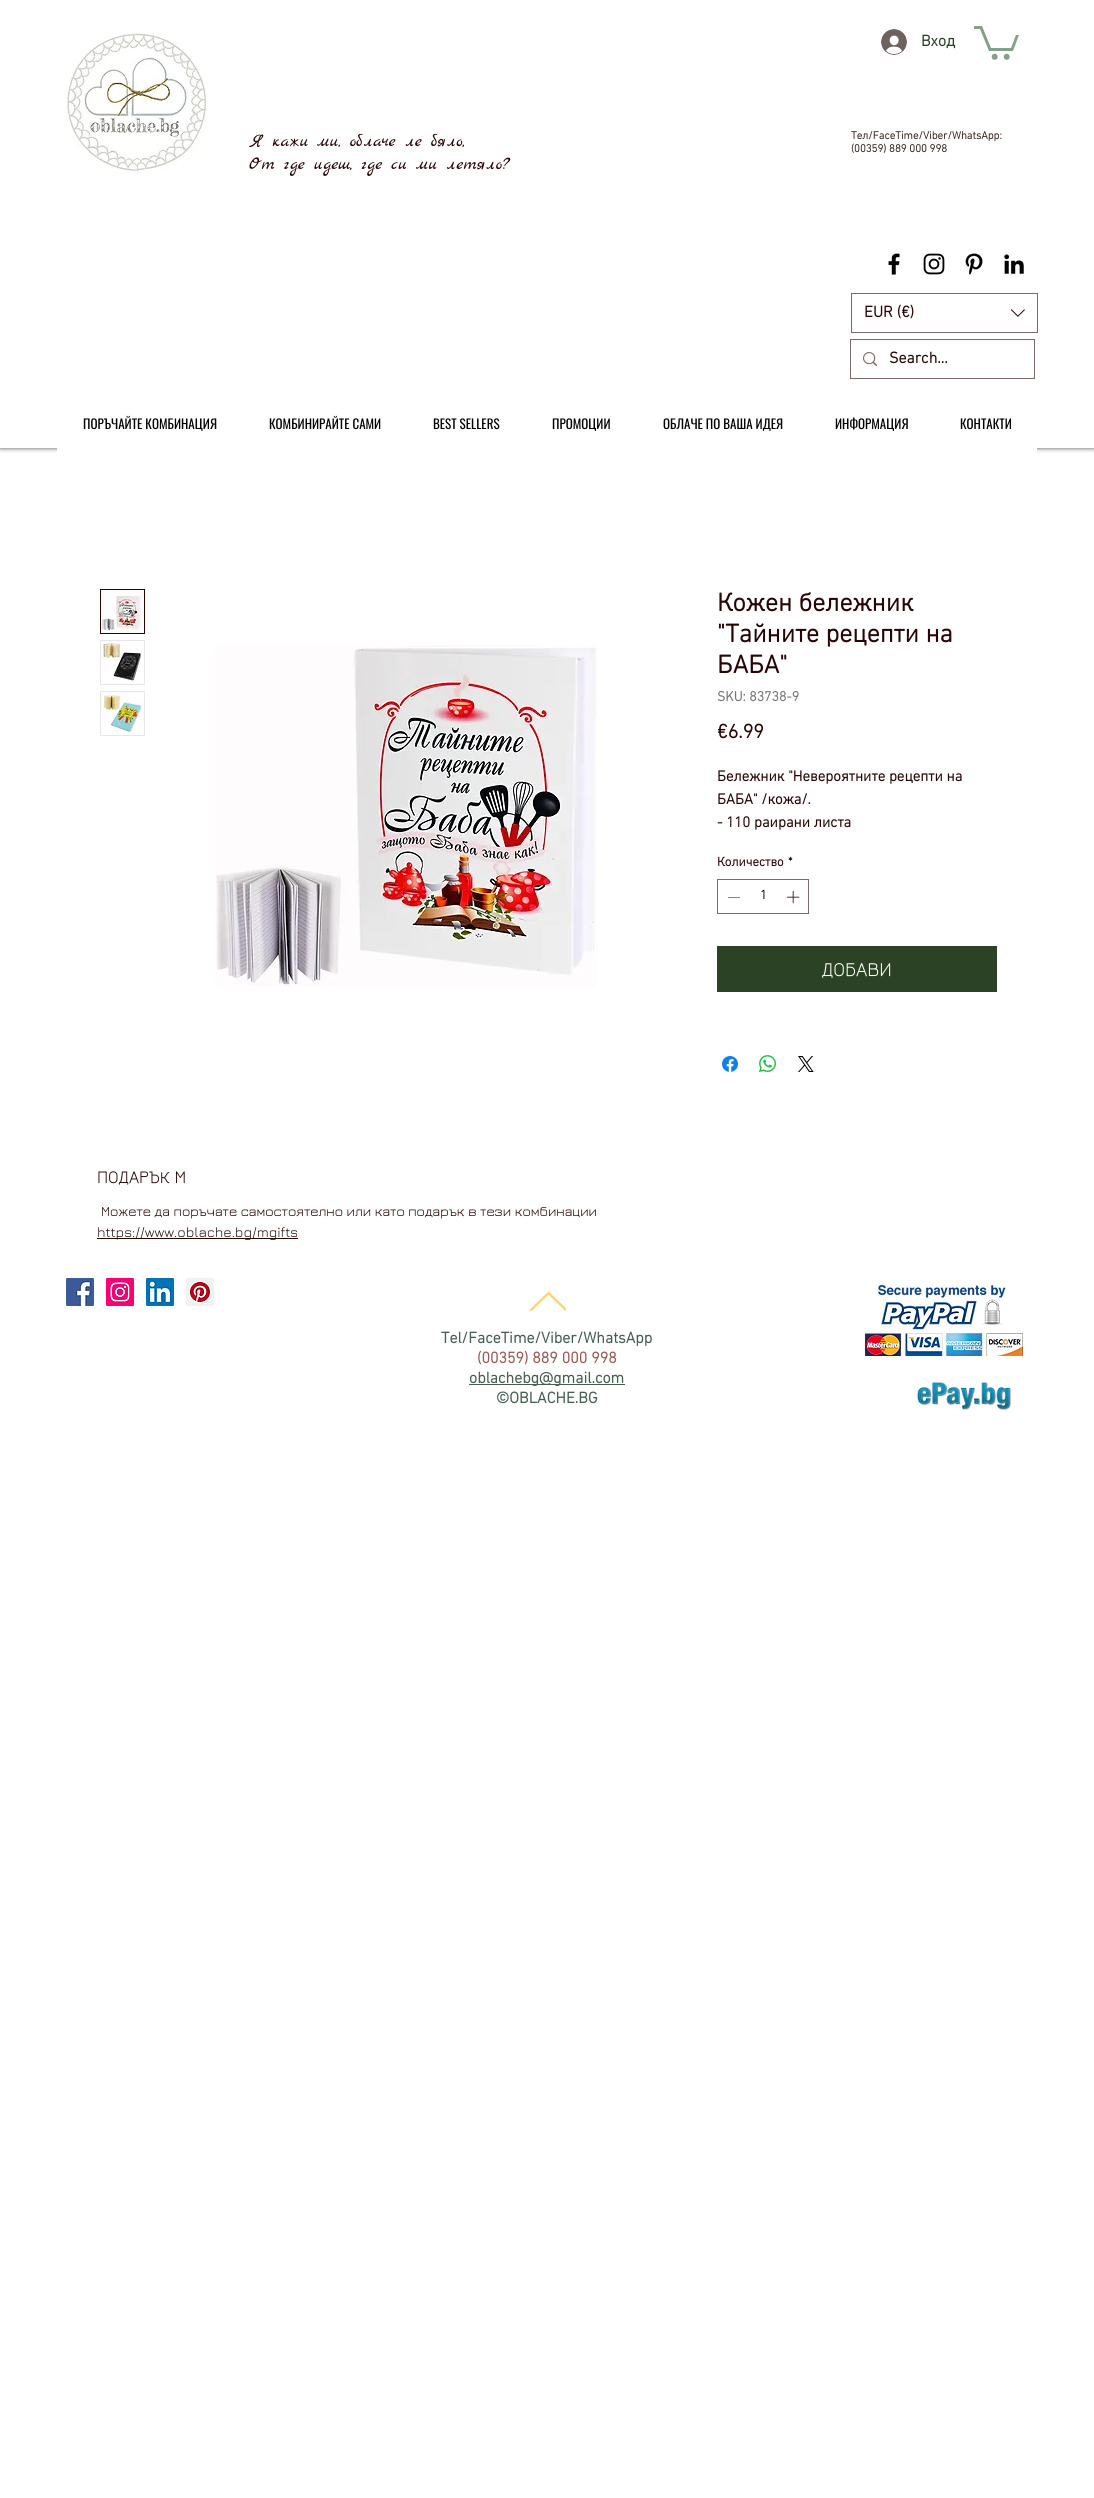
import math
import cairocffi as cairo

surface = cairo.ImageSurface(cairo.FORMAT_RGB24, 1094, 2498)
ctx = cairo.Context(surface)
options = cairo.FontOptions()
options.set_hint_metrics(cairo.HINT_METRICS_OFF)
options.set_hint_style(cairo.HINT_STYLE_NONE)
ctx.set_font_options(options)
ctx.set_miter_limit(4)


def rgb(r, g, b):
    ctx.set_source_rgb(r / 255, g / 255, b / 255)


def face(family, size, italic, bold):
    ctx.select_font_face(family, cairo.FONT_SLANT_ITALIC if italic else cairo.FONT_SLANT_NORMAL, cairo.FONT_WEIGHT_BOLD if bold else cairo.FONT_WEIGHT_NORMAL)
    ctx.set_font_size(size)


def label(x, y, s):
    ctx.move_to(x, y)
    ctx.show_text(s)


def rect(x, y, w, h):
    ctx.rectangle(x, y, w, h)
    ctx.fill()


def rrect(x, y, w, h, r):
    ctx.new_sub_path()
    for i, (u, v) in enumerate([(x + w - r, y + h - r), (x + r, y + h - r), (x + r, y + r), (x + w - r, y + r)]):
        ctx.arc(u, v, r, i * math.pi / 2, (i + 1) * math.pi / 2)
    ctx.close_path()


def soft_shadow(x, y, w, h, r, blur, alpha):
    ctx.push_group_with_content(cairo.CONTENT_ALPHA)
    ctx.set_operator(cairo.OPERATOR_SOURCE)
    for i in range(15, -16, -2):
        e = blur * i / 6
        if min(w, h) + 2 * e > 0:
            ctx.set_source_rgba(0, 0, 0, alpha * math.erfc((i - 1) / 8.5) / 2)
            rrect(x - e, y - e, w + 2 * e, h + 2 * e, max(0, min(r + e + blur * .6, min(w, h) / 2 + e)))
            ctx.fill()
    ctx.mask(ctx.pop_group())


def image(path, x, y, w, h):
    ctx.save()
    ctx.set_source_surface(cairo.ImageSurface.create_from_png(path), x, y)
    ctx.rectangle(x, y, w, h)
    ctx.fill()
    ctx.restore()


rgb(255, 255, 255)
ctx.paint()
ctx.save()
ctx.rectangle(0, 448, 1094, 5)
ctx.clip()
rgb(0, 0, 0)
soft_shadow(0, 0, 1094, 448, 0, 2.5, 0.7)
ctx.restore()
image('image0.png', 65, 33, 143, 140)
image('image1.png', 881, 29, 26, 26)
face('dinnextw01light', 16, 0, 1)
rgb(43, 67, 36)
label(921, 46, 'Вход')
rgb(132, 160, 136)
ctx.new_path()
ctx.move_to(1019, 35)
ctx.line_to(1013, 51)
ctx.line_to(989, 51)
ctx.line_to(980, 29)
ctx.line_to(974, 29)
ctx.line_to(974, 26)
ctx.line_to(982, 26)
ctx.line_to(991, 48)
ctx.line_to(1011, 48)
ctx.line_to(1016, 35)
ctx.fill()
ctx.arc(1006.7, 56.8, 3, 0, 2 * math.pi)
ctx.fill()
ctx.arc(994.7, 56.8, 3, 0, 2 * math.pi)
ctx.fill()
face('Marck Script', 18, 0, 0)
rgb(39, 5, 5)
label(249, 146, 'Я кажи ми, облаче ле бяло,')
label(249, 169, 'От где идеш, где си ми летяло?')
face('dinnextw01light', 11, 0, 1)
rgb(56, 41, 36)
label(851, 139, 'Тел/FaceTime/Viber/WhatsApp:')
label(851, 152, '(00359) 889 000 998')
image('image2.png', 888, 253, 12, 22)
image('image3.png', 923, 253, 22, 22)
image('image4.png', 965, 253, 18, 22)
image('image5.png', 1004, 254, 20, 20)
ctx.rectangle(851.5, 293.5, 186, 39)
rgb(125, 105, 105)
ctx.set_line_width(1)
ctx.stroke()
face('dinnextw01light', 16, 0, 1)
rgb(39, 5, 5)
label(864, 317, 'EUR (€)')
image('image6.png', 1010, 309, 15, 8)
ctx.rectangle(850.5, 339.5, 184, 39)
rgb(125, 105, 105)
ctx.stroke()
image('image7.png', 863, 352, 14, 14)
rgb(39, 5, 5)
label(889, 363, 'Search...')
face('Oswald', 13, 0, 0)
rgb(0, 0, 0)
label(83, 429, 'ПОРЪЧАЙТЕ КОМБИНАЦИЯ')
label(269, 429, 'КОМБИНИРАЙТЕ САМИ')
label(433, 429, 'BEST SELLERS')
label(552, 429, 'ПРОМОЦИИ')
label(663, 429, 'ОБЛАЧЕ ПО ВАША ИДЕЯ')
label(835, 429, 'ИНФОРМАЦИЯ')
label(960, 429, 'КОНТАКТИ')
rgb(255, 255, 255)
rect(57, 448, 980, 5)
ctx.rectangle(100.5, 589.5, 44, 44)
rgb(39, 5, 5)
ctx.stroke()
image('image8.png', 101, 590, 43, 43)
rgb(232, 230, 230)
rect(100, 640, 45, 45)
image('image9.png', 101, 641, 43, 43)
rect(100, 691, 45, 45)
image('image10.png', 101, 692, 43, 43)
image('image11.png', 215, 645, 382, 342)
face('dinnextw01light', 26, 0, 1)
rgb(39, 5, 5)
label(717, 611, 'Кожен бележник')
label(717, 642, '"Тайните рецепти на')
label(717, 673, 'БАБА"')
face('dinnextw01light', 14, 0, 1)
rgb(117, 117, 117)
label(717, 701, 'SKU: 83738-9')
face('dinnextw01light', 20, 0, 1)
rgb(39, 5, 5)
label(717, 738, '€6.99')
face('dinnextw01light', 15, 0, 1)
label(717, 781, 'Бележник "Невероятните рецепти на')
label(717, 804, 'БАБА" /кожа/.')
label(717, 827, '- 110 раирани листа')
face('dinnextw01light', 13, 0, 1)
label(717, 866, 'Количество')
label(788, 866, '*')
ctx.rectangle(717.5, 879.5, 91, 34)
rgb(125, 105, 105)
ctx.stroke()
rgb(39, 5, 5)
ctx.set_fill_rule(cairo.FILL_RULE_EVEN_ODD)
ctx.new_path()
ctx.move_to(740, 897)
ctx.line_to(740, 897.5)
ctx.line_to(728, 897.5)
ctx.line_to(728, 897)
ctx.close_path()
ctx.fill()
label(760, 899, '1')
image('image12.png', 787, 891, 13, 13)
rgb(43, 67, 36)
rect(717, 946, 280, 46)
face('Jura', 20, 0, 0)
rgb(255, 255, 255)
label(822, 976, 'ДОБАВИ')
image('image13.png', 722, 1056, 16, 16)
image('image14.png', 759, 1055, 17, 17)
image('image15.png', 798, 1056, 16, 16)
face('Jura', 18, 0, 0)
rgb(39, 5, 5)
label(97, 1183, 'ПОДАРЪК М')
face('Jura', 14, 0, 0)
label(101, 1216, 'Можете да поръчате самостоятелно или като подарък в тези комбинации')
rect(97, 1238, 201, 1)
label(97, 1237, 'https://www.oblache.bg/mgifts')
image('image16.png', 66, 1278, 28, 28)
image('image17.png', 106, 1278, 28, 28)
image('image18.png', 146, 1278, 28, 28)
image('image19.png', 186, 1278, 28, 28)
image('image20.png', 529, 1291, 37, 20)
image('image21.png', 865, 1284, 158, 72)
face('dinnextw01light', 16, 0, 1)
rgb(70, 94, 82)
label(441, 1343, 'Tel/FaceTime/Viber/WhatsApp')
rgb(154, 88, 83)
label(477, 1363, '(00359) 889 000 998')
rgb(70, 94, 82)
rect(469, 1384, 156, 1)
label(469, 1383, 'oblachebg@gmail.com')
label(496, 1403, '©OBLACHE.BG')
image('image22.png', 917, 1380, 94, 30)
surface.write_to_png('render.png')
